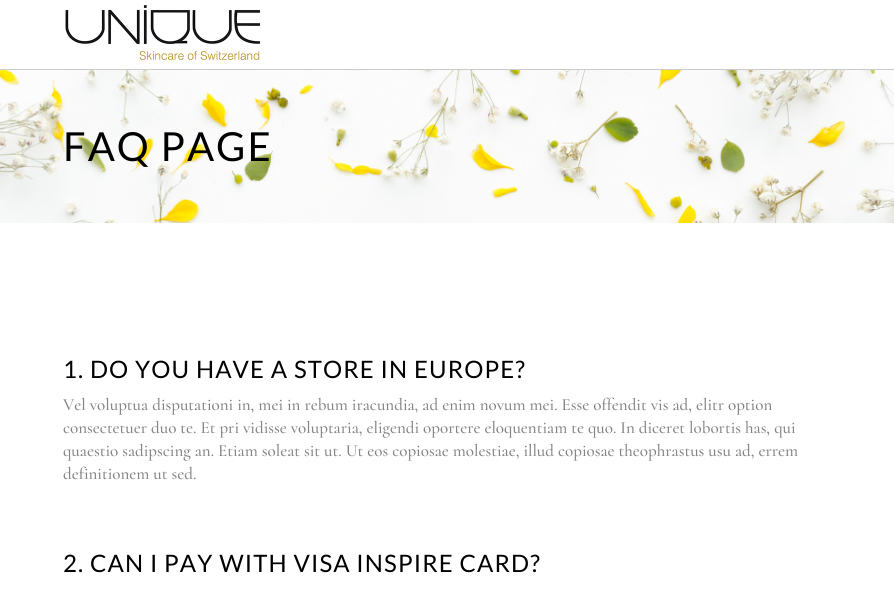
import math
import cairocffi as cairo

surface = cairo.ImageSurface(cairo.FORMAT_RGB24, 894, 593)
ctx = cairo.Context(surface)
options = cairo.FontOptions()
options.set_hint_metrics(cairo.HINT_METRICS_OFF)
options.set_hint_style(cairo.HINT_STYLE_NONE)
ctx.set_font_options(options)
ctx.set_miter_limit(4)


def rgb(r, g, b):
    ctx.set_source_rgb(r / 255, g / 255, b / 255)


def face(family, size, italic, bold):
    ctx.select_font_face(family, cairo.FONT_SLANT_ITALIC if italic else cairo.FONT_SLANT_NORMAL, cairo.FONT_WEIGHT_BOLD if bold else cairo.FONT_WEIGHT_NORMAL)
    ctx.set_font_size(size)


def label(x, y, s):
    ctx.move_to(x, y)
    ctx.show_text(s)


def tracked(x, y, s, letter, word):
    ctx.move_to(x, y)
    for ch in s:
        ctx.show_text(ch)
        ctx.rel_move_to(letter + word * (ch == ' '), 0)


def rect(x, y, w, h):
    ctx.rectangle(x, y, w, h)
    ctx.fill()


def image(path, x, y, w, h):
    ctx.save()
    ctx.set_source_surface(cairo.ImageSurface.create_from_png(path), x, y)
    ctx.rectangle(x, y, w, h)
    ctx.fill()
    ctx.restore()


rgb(255, 255, 255)
ctx.paint()
rgb(203, 203, 203)
rect(0, 69, 894, 1)
image('image0.png', 65, 5, 196, 55)
image('image1.png', 0, 70, 894, 153)
face('Lato', 40, 0, 0)
rgb(0, 0, 0)
tracked(63, 161, 'FAQ PAGE', 2, 0)
face('Lato', 24, 0, 0)
tracked(63, 378, '1. DO YOU HAVE A STORE IN EUROPE?', 1.1, 0)
face('Cormorant Medium', 17, 0, 0)
rgb(131, 131, 131)
label(63, 410, 'Vel voluptua disputationi in, mei in rebum iracundia, ad enim novum mei. Esse offendit vis ad, elitr option')
label(63, 433, 'consectetuer duo te. Et pri vidisse voluptaria, eligendi oportere eloquentiam te quo. In diceret lobortis has, qui')
label(63, 456, 'quaestio sadipscing an. Etiam soleat sit ut. Ut eos copiosae molestiae, illud copiosae theophrastus usu ad, errem')
label(63, 479, 'definitionem ut sed.')
face('Lato', 24, 0, 0)
rgb(0, 0, 0)
tracked(63, 572, '2. CAN I PAY WITH VISA INSPIRE CARD?', 1.1, 0)
surface.write_to_png('render.png')
